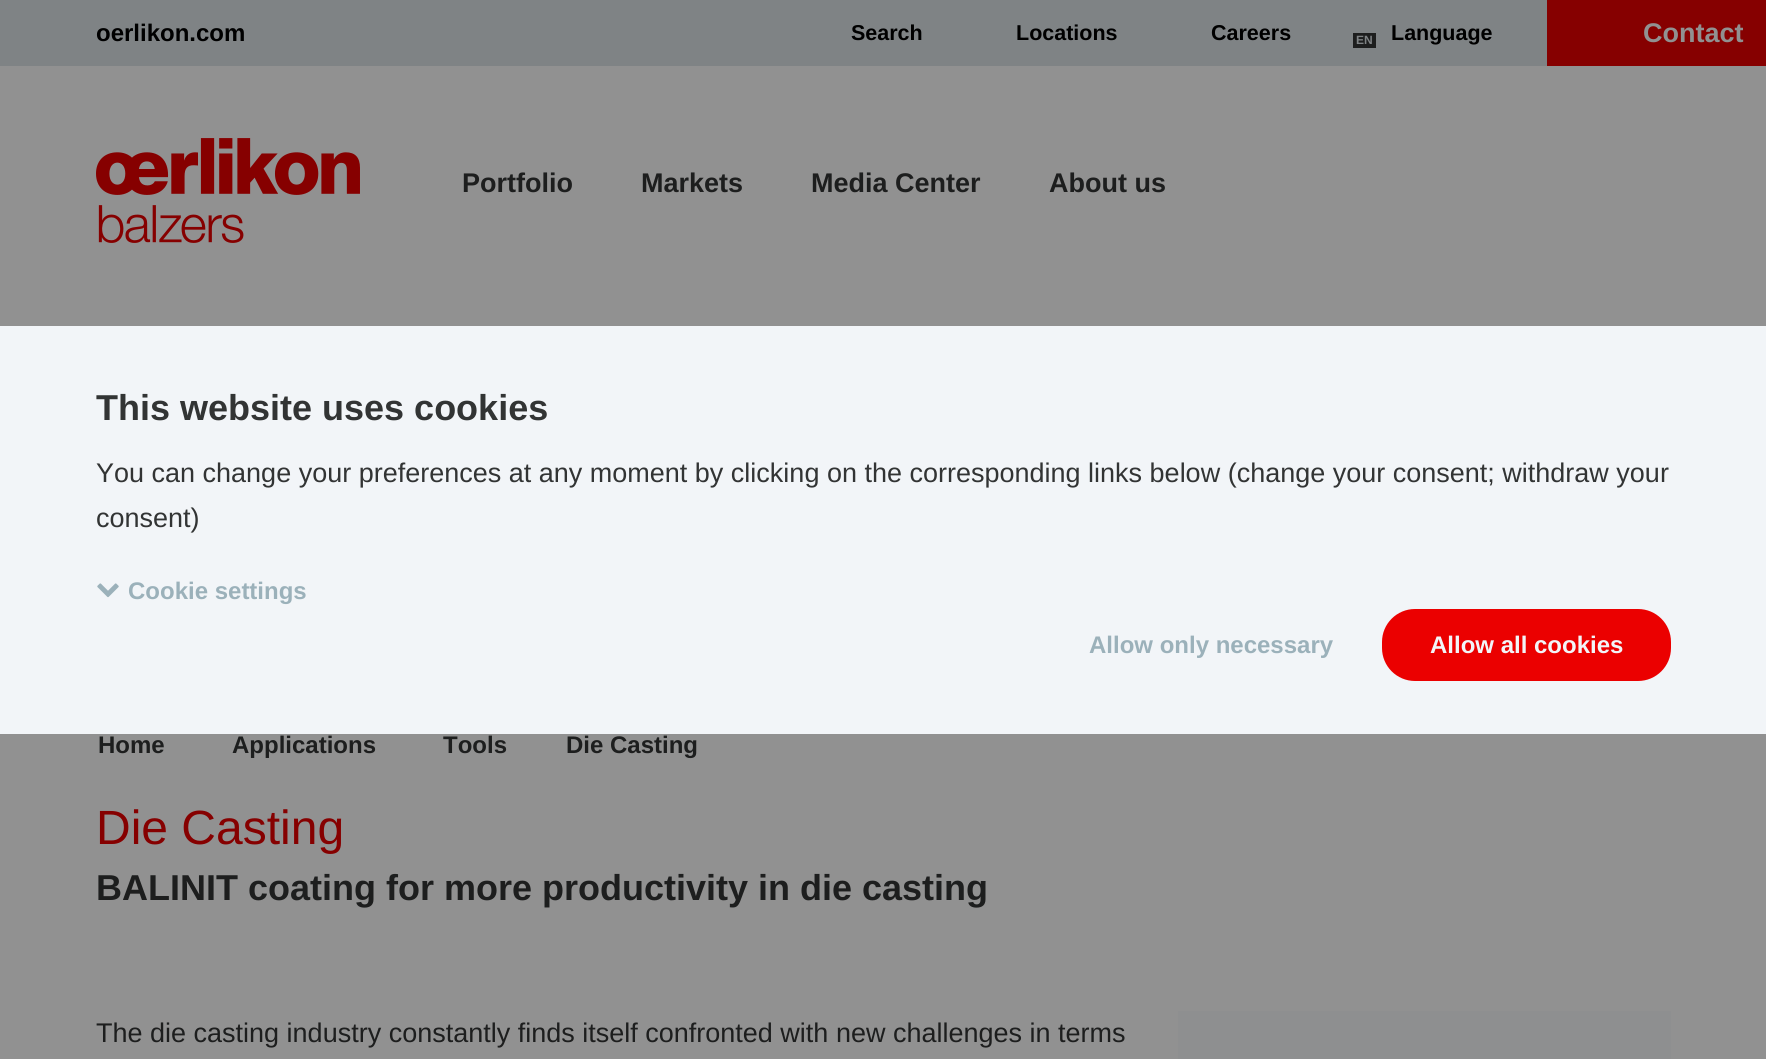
import math
import cairocffi as cairo

surface = cairo.ImageSurface(cairo.FORMAT_RGB24, 1766, 1059)
ctx = cairo.Context(surface)
options = cairo.FontOptions()
options.set_hint_metrics(cairo.HINT_METRICS_OFF)
options.set_hint_style(cairo.HINT_STYLE_NONE)
ctx.set_font_options(options)
ctx.set_miter_limit(4)


def rgb(r, g, b):
    ctx.set_source_rgb(r / 255, g / 255, b / 255)


def face(family, size, italic, bold):
    ctx.select_font_face(family, cairo.FONT_SLANT_ITALIC if italic else cairo.FONT_SLANT_NORMAL, cairo.FONT_WEIGHT_BOLD if bold else cairo.FONT_WEIGHT_NORMAL)
    ctx.set_font_size(size)


def label(x, y, s):
    ctx.move_to(x, y)
    ctx.show_text(s)


def rect(x, y, w, h):
    ctx.rectangle(x, y, w, h)
    ctx.fill()


def rrect(x, y, w, h, r):
    ctx.new_sub_path()
    for i, (u, v) in enumerate([(x + w - r, y + h - r), (x + r, y + h - r), (x + r, y + r), (x + w - r, y + r)]):
        ctx.arc(u, v, r, i * math.pi / 2, (i + 1) * math.pi / 2)
    ctx.close_path()


def image(path, x, y, w, h):
    ctx.save()
    ctx.set_source_surface(cairo.ImageSurface.create_from_png(path), x, y)
    ctx.rectangle(x, y, w, h)
    ctx.fill()
    ctx.restore()


rgb(145, 145, 145)
ctx.paint()
rgb(127, 131, 133)
rect(0, 0, 1547, 66)
face('Liberation Sans', 24, 0, 1)
rgb(0, 0, 0)
label(96, 41, 'oerlikon.com')
face('Liberation Sans', 21.5, 0, 1)
label(851, 40, 'Search')
label(1016, 40, 'Locations')
label(1211, 40, 'Careers')
rgb(29, 30, 30)
rect(1353, 33, 23, 15)
face('Liberation Sans', 12, 0, 1)
rgb(127, 131, 133)
label(1356, 44, 'EN')
face('Liberation Sans', 21.5, 0, 1)
rgb(0, 0, 0)
label(1391, 40, 'Language')
rgb(134, 0, 0)
rect(1547, 0, 219, 66)
face('Liberation Sans', 27, 0, 1)
rgb(145, 145, 145)
label(1643, 42, 'Contact')
image('image0.png', 96, 138, 264, 105)
rgb(29, 30, 30)
label(462, 192, 'Portfolio')
label(641, 192, 'Markets')
label(811, 192, 'Media Center')
label(1049, 192, 'About us')
face('Liberation Sans', 24, 0, 1)
label(98, 753, 'Home')
label(232, 753, 'Applications')
label(443, 753, 'Tools')
label(566, 753, 'Die Casting')
face('Liberation Sans', 48, 0, 0)
rgb(134, 0, 0)
label(96, 844, 'Die Casting')
face('Liberation Sans', 36, 0, 1)
rgb(29, 30, 30)
label(96, 900, 'BALINIT coating for more productivity in die casting')
face('Liberation Sans', 27, 0, 0)
label(96, 1042, 'The die casting industry constantly finds itself confronted with new challenges in terms')
rgb(142, 143, 144)
rect(1178, 1011, 493, 48)
rgb(242, 245, 248)
rect(0, 326, 1766, 408)
face('Liberation Sans', 36, 0, 1)
rgb(50, 52, 52)
label(96, 420, 'This website uses cookies')
face('Liberation Sans', 27, 0, 0)
label(96, 482, 'You can change your preferences at any moment by clicking on the corresponding links below (change your consent; withdraw your')
label(96, 527, 'consent)')
image('image1.png', 97, 583, 22, 15)
face('Liberation Sans', 24, 0, 1)
rgb(155, 177, 186)
label(128, 599, 'Cookie settings')
label(1089, 653, 'Allow only necessary')
rgb(235, 0, 0)
rrect(1385, 612, 283, 66, 30)
ctx.fill_preserve()
ctx.set_line_width(6)
ctx.stroke()
rgb(242, 245, 248)
label(1430, 653, 'Allow all cookies')
surface.write_to_png('render.png')
